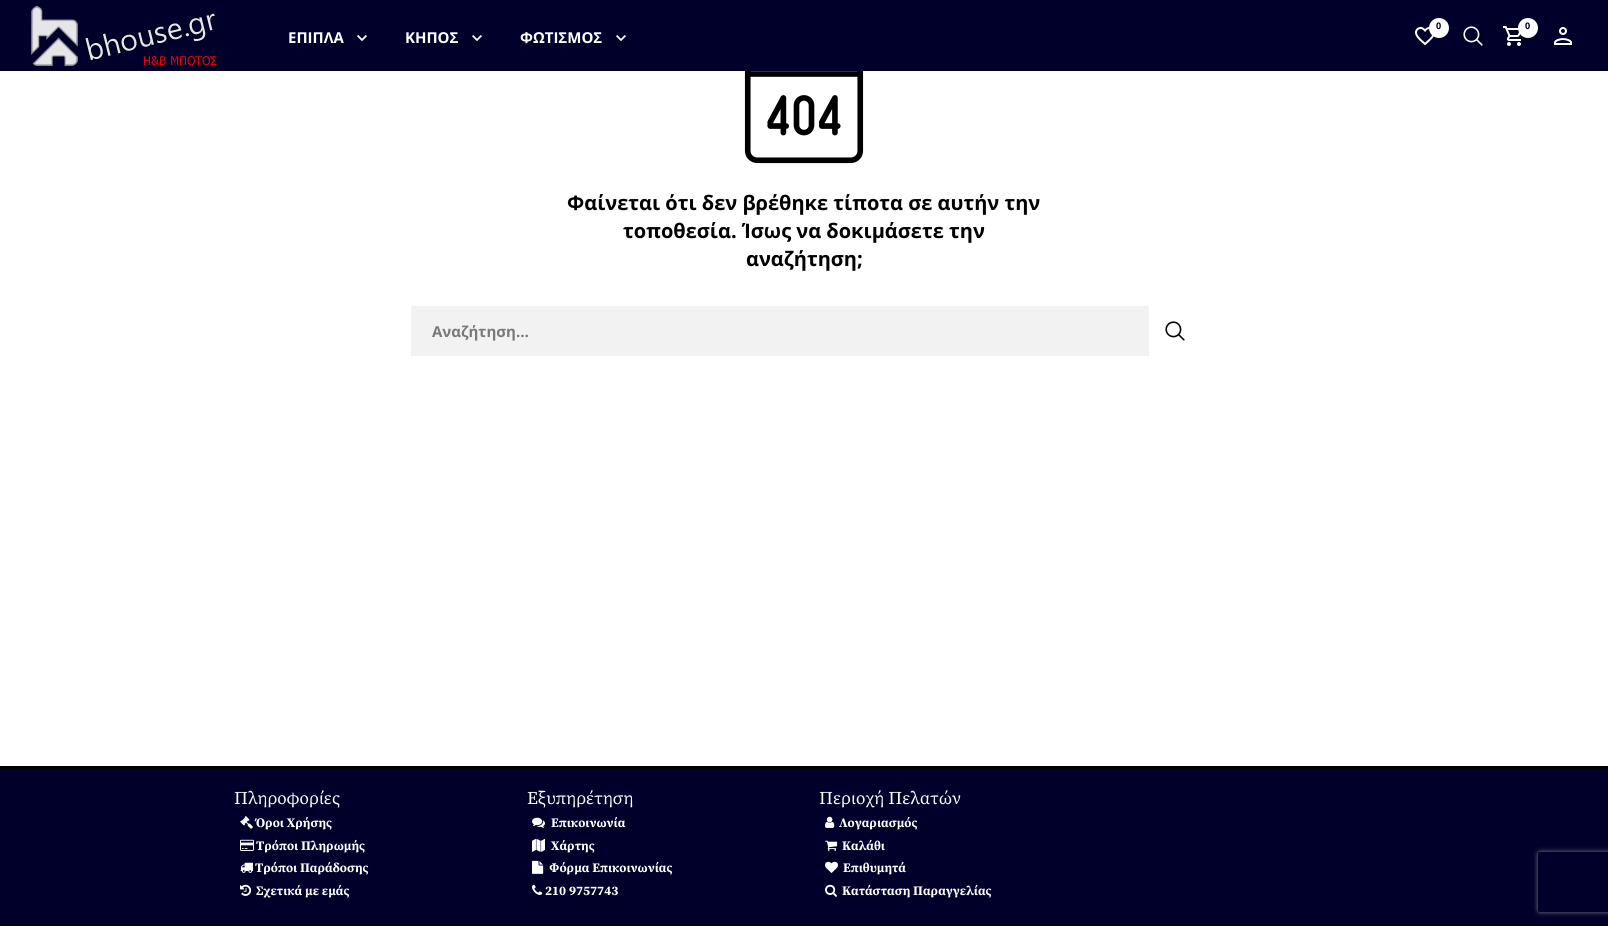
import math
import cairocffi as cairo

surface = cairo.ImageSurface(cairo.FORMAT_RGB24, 1608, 926)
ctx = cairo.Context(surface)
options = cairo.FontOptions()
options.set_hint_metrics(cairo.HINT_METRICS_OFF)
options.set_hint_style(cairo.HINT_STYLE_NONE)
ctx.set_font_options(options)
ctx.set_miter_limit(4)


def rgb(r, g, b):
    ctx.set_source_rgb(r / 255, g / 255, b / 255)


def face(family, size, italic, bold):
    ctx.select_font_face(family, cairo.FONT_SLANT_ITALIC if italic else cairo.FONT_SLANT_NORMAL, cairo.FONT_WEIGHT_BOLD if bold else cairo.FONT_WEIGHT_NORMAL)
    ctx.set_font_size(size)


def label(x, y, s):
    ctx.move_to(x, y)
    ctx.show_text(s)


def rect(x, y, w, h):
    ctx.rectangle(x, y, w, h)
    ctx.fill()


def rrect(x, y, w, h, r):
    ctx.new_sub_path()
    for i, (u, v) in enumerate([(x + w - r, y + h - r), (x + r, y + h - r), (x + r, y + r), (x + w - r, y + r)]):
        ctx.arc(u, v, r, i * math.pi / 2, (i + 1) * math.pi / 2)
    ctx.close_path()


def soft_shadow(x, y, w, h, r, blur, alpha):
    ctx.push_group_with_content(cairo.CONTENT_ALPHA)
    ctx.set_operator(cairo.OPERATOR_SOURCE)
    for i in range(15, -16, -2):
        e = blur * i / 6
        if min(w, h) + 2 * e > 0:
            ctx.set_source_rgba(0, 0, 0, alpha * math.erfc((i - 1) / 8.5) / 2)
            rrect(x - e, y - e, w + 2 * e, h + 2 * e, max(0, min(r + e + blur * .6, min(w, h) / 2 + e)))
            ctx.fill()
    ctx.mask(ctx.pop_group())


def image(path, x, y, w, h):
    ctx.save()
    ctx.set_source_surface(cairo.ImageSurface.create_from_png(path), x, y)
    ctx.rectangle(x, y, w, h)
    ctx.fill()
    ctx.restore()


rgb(255, 255, 255)
ctx.paint()
rgb(0, 0, 43)
rect(0, 0, 1608, 71)
image('image0.png', 31, 6, 186, 60)
image('image1.png', 1415, 27, 19, 19)
rgb(255, 255, 255)
ctx.arc(1439, 28, 10, 0, 2 * math.pi)
ctx.fill()
face('Open Sans', 9, 0, 1)
rgb(0, 0, 43)
label(1436, 29, '0')
image('image2.png', 1463, 26, 20, 20)
image('image3.png', 1503, 26, 18, 20)
rgb(255, 255, 255)
ctx.arc(1528, 28, 10, 0, 2 * math.pi)
ctx.fill()
rgb(0, 0, 43)
label(1525, 29, '0')
image('image4.png', 1554, 27, 18, 18)
face('Open Sans', 15, 0, 1)
rgb(255, 255, 255)
label(288, 43, 'ΕΠΙΠΛΑ')
image('image5.png', 357, 35, 10, 7)
label(405, 43, 'ΚΗΠΟΣ')
image('image5.png', 472, 35, 10, 7)
label(520, 43, 'ΦΩΤΙΣΜΟΣ')
image('image5.png', 616, 35, 10, 7)
image('image6.png', 744, 71, 120, 93)
face('Open Sans', 20, 0, 1)
rgb(0, 0, 0)
label(567, 210, 'Φαίνεται ότι δεν βρέθηκε τίποτα σε αυτήν την')
label(623, 238, 'τοποθεσία. Ίσως να δοκιμάσετε την')
label(746, 266, 'αναζήτηση;')
rgb(242, 242, 242)
rect(411, 306, 738, 50)
face('Open Sans', 15, 0, 1)
rgb(121, 121, 121)
label(432, 337, 'Αναζήτηση…')
image('image7.png', 1165, 321, 20, 20)
rgb(0, 0, 0)
rect(0, 766, 1608, 4)
rgb(0, 0, 43)
rect(0, 770, 1608, 156)
face('Source Serif Pro', 18, 0, 0)
rgb(255, 255, 255)
label(234, 804, 'Πληροφορίες')
image('image8.png', 240, 816, 13, 13)
face('Source Serif Pro', 13, 0, 1)
label(255, 827, 'Όροι Χρήσης')
image('image9.png', 240, 839, 14, 12)
label(256, 850, 'Τρόποι Πληρωμής')
image('image10.png', 240, 862, 13, 11)
label(255, 872, 'Τρόποι Παράδοσης')
image('image11.png', 240, 884, 12, 12)
label(256, 895, 'Σχετικά με εμάς')
face('Source Serif Pro', 18, 0, 0)
label(527, 804, 'Εξυπηρέτηση')
image('image12.png', 532, 817, 13, 11)
face('Source Serif Pro', 13, 0, 1)
label(551, 827, 'Επικοινωνία')
image('image13.png', 532, 838, 13, 14)
label(551, 850, 'Χάρτης')
image('image14.png', 532, 860, 12, 14)
label(549, 872, 'Φόρμα Επικοινωνίας')
image('image15.png', 532, 884, 11, 11)
label(545, 895, '210 9757743')
face('Source Serif Pro', 18, 0, 0)
label(819, 804, 'Περιοχή Πελατών')
image('image16.png', 825, 816, 10, 12)
face('Source Serif Pro', 13, 0, 1)
label(839, 827, 'Λογαριασμός')
image('image17.png', 825, 840, 13, 11)
label(842, 850, 'Καλάθι')
image('image18.png', 825, 861, 13, 12)
label(843, 872, 'Επιθυμητά')
image('image19.png', 825, 884, 12, 13)
label(842, 895, 'Κατάσταση Παραγγελίας')
ctx.save()
ctx.set_fill_rule(cairo.FILL_RULE_EVEN_ODD)
ctx.new_path()
ctx.move_to(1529, 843)
ctx.line_to(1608, 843)
ctx.line_to(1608, 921)
ctx.line_to(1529, 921)
ctx.close_path()
ctx.move_to(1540, 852)
ctx.line_to(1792, 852)
ctx.curve_to(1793, 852, 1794, 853, 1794, 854)
ctx.line_to(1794, 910)
ctx.curve_to(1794, 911, 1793, 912, 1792, 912)
ctx.line_to(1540, 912)
ctx.curve_to(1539, 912, 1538, 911, 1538, 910)
ctx.line_to(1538, 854)
ctx.curve_to(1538, 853, 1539, 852, 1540, 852)
ctx.close_path()
ctx.clip()
rgb(128, 128, 128)
soft_shadow(1538, 852, 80, 60, 2, 2.5, 1)
ctx.restore()
surface.write_to_png('render.png')
